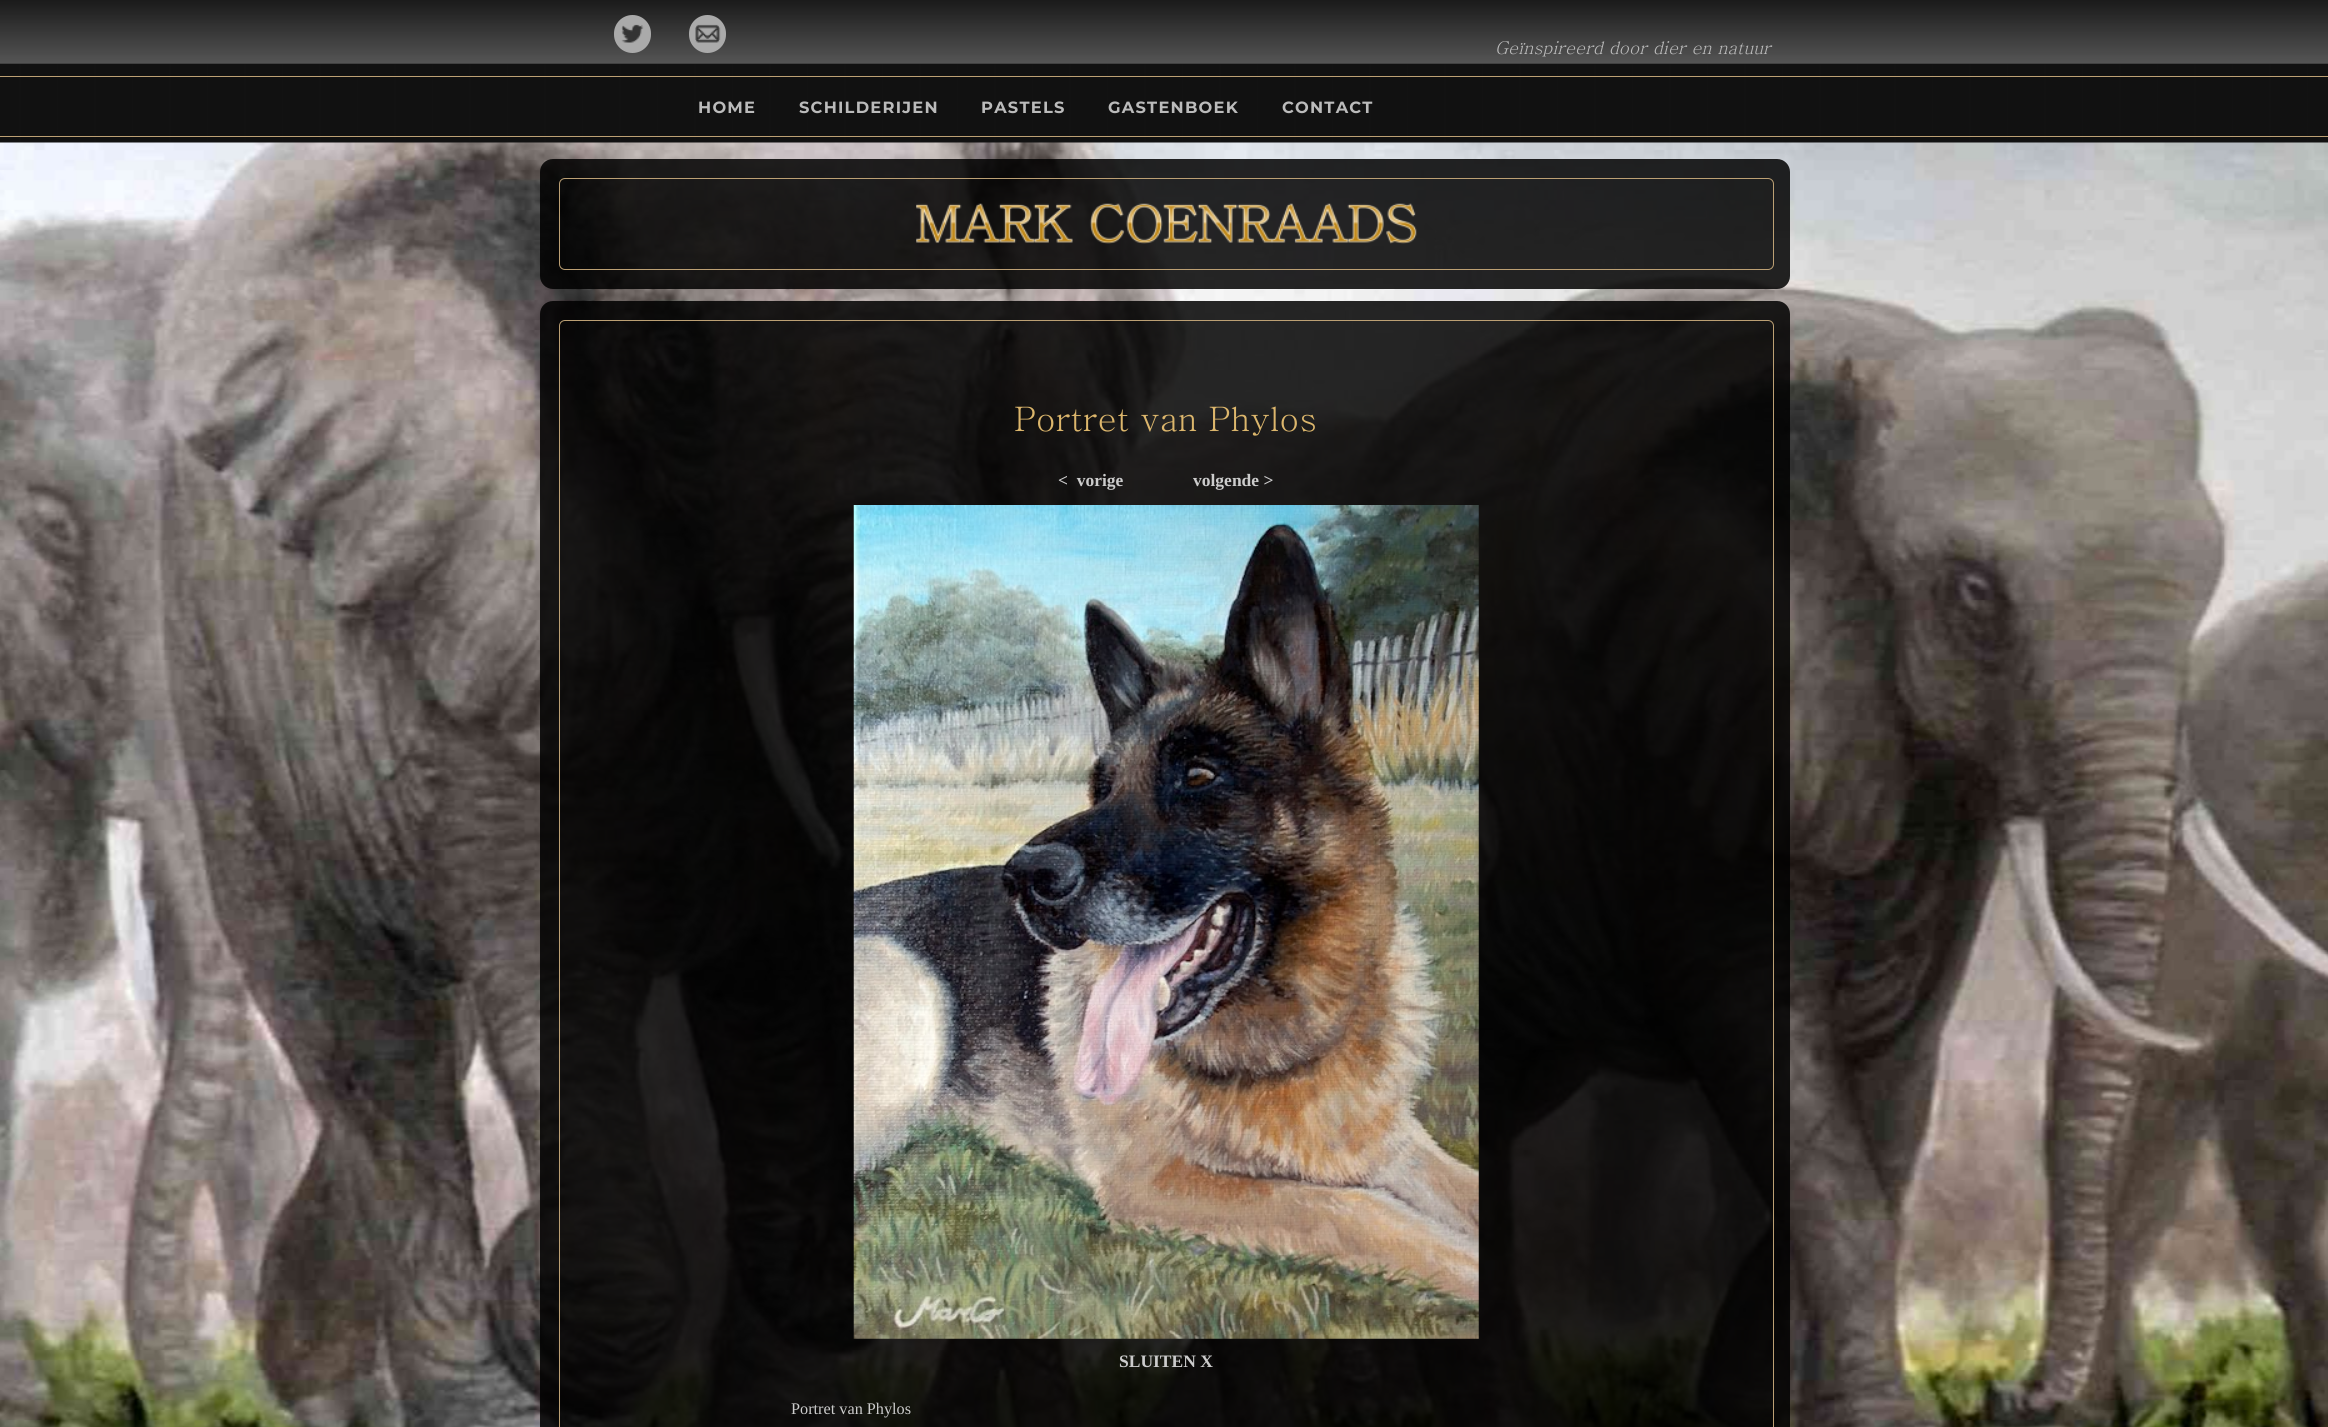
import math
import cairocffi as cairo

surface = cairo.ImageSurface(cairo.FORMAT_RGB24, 2328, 1427)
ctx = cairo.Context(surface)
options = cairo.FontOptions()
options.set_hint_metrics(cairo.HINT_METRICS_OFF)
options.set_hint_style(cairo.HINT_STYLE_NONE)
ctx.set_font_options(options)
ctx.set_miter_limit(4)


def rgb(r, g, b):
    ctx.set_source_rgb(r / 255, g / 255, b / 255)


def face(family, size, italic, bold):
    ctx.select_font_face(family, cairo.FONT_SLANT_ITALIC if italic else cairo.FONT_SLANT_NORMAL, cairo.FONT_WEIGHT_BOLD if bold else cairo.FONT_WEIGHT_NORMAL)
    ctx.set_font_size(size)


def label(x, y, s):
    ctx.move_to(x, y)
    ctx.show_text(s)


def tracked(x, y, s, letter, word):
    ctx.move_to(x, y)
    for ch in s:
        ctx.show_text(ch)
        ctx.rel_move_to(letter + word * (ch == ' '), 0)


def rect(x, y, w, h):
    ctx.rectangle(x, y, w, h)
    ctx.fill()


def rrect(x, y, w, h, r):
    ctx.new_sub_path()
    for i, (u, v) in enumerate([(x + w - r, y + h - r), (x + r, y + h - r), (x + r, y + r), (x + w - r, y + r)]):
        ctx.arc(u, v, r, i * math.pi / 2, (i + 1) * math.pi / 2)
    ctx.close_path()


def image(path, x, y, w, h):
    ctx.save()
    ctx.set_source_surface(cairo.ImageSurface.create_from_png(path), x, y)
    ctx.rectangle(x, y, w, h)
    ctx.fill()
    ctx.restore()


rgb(255, 255, 255)
ctx.paint()
image('image0.png', 0, 142, 2328, 1285)
image('image1.png', 0, 0, 2328, 143)
rgb(170, 170, 170)
rrect(614, 15, 37, 38, 18.5)
ctx.fill()
image('image2.png', 621, 24, 23, 19)
rrect(689, 15, 37, 38, 18.5)
ctx.fill()
image('image3.png', 695, 24, 26, 19)
face('Batang', 17.5, 1, 0)
rgb(187, 187, 187)
label(1495, 54, 'Geïnspireerd door dier en natuur')
rgb(188, 160, 116)
rect(0, 76, 2328, 1)
rect(0, 136, 2328, 1)
face('Montserrat', 16.25, 0, 1)
rgb(187, 187, 187)
tracked(698, 113, 'HOME', 1.25, 0)
tracked(799, 113, 'SCHILDERIJEN', 1.25, 0)
tracked(981, 113, 'PASTELS', 1.25, 0)
tracked(1108, 113, 'GASTENBOEK', 1.25, 0)
tracked(1282, 113, 'CONTACT', 1.25, 0)
ctx.set_source_rgba(0, 0, 0, 0.85)
rrect(540, 159, 1250, 130, 13)
ctx.fill()
rrect(559.5, 178.5, 1214, 91, 5.5)
rgb(188, 160, 116)
ctx.set_line_width(1)
ctx.stroke()
image('image4.png', 916, 203, 501, 41)
ctx.set_source_rgba(0, 0, 0, 0.85)
rrect(540, 301, 1250, 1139, 13)
ctx.fill()
rrect(559.5, 320.5, 1214, 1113, 5.5)
rgb(188, 160, 116)
ctx.stroke()
face('Batang', 33.75, 0, 0)
rgb(220, 182, 108)
label(1014, 431, 'Portret van Phylos')
face('Liberation Serif', 17.5, 0, 1)
rgb(204, 204, 204)
label(1058, 486, '<  vorige')
label(1193, 486, 'volgende >')
image('image5.png', 853, 505, 626, 834)
label(1119, 1367, 'SLUITEN X')
face('Liberation Serif', 16.25, 0, 0)
label(791, 1414, 'Portret van Phylos')
surface.write_to_png('render.png')
